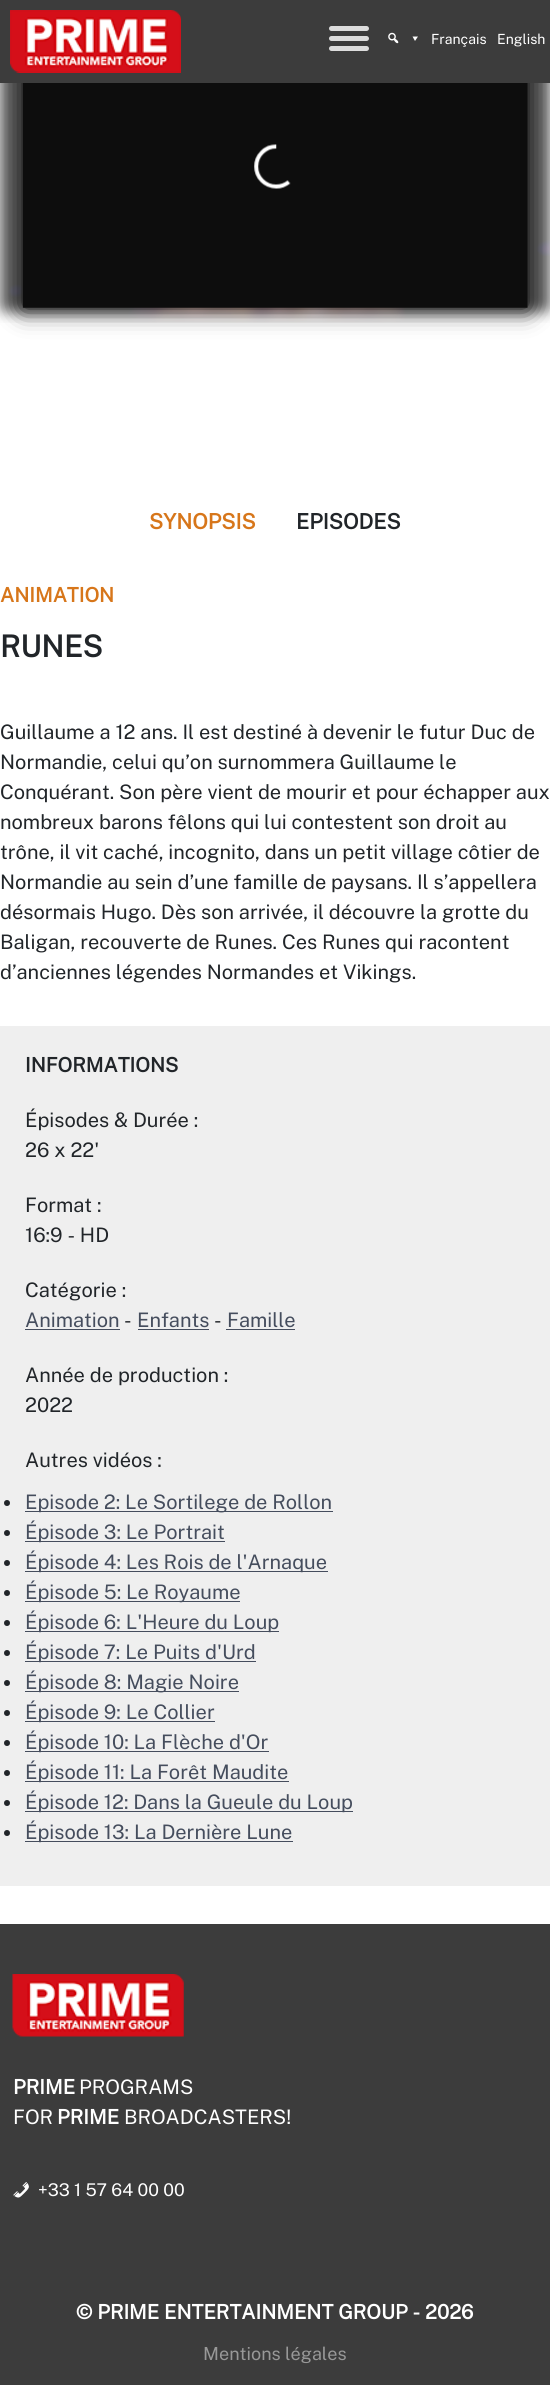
import math
import cairocffi as cairo

surface = cairo.ImageSurface(cairo.FORMAT_RGB24, 550, 2385)
ctx = cairo.Context(surface)
options = cairo.FontOptions()
options.set_hint_metrics(cairo.HINT_METRICS_OFF)
options.set_hint_style(cairo.HINT_STYLE_NONE)
ctx.set_font_options(options)
ctx.set_miter_limit(4)


def rgb(r, g, b):
    ctx.set_source_rgb(r / 255, g / 255, b / 255)


def face(family, size, italic, bold):
    ctx.select_font_face(family, cairo.FONT_SLANT_ITALIC if italic else cairo.FONT_SLANT_NORMAL, cairo.FONT_WEIGHT_BOLD if bold else cairo.FONT_WEIGHT_NORMAL)
    ctx.set_font_size(size)


def label(x, y, s):
    ctx.move_to(x, y)
    ctx.show_text(s)


def rect(x, y, w, h):
    ctx.rectangle(x, y, w, h)
    ctx.fill()


def rrect(x, y, w, h, r):
    ctx.new_sub_path()
    for i, (u, v) in enumerate([(x + w - r, y + h - r), (x + r, y + h - r), (x + r, y + r), (x + w - r, y + r)]):
        ctx.arc(u, v, r, i * math.pi / 2, (i + 1) * math.pi / 2)
    ctx.close_path()


def soft_shadow(x, y, w, h, r, blur, alpha):
    ctx.push_group_with_content(cairo.CONTENT_ALPHA)
    ctx.set_operator(cairo.OPERATOR_SOURCE)
    for i in range(15, -16, -2):
        e = blur * i / 6
        if min(w, h) + 2 * e > 0:
            ctx.set_source_rgba(0, 0, 0, alpha * math.erfc((i - 1) / 8.5) / 2)
            rrect(x - e, y - e, w + 2 * e, h + 2 * e, max(0, min(r + e + blur * .6, min(w, h) / 2 + e)))
            ctx.fill()
    ctx.mask(ctx.pop_group())


def image(path, x, y, w, h):
    ctx.save()
    ctx.set_source_surface(cairo.ImageSurface.create_from_png(path), x, y)
    ctx.rectangle(x, y, w, h)
    ctx.fill()
    ctx.restore()


rgb(255, 255, 255)
ctx.paint()
image('image3.png', 0, 83, 550, 240)
rgb(0, 0, 0)
soft_shadow(23, 24, 505, 284, 0, 12.5, 1)
rgb(60, 60, 60)
rect(0, 0, 550, 83)
image('image0.png', 10, 10, 171, 63)
rgb(221, 221, 221)
rrect(329, 26, 40, 5, 2.5)
ctx.fill()
rrect(329, 36, 40, 5, 2.5)
ctx.fill()
rrect(329, 46, 40, 5, 2.5)
ctx.fill()
image('image1.png', 388, 32, 11, 12)
rgb(255, 255, 255)
ctx.new_path()
ctx.move_to(418, 36.5)
ctx.line_to(415, 41)
ctx.line_to(412.5, 36.5)
ctx.close_path()
ctx.fill()
face('Public Sans Thin', 14, 0, 0)
label(431, 44, 'Français')
label(497, 44, 'English')
image('image2.png', 22, 83, 506, 225)
face('Public Sans', 21.25, 0, 1)
rgb(215, 118, 26)
label(149, 529, 'SYNOPSIS')
rgb(33, 37, 41)
label(296, 529, 'EPISODES')
face('Public Sans', 20, 0, 1)
rgb(215, 118, 26)
label(0, 602, 'ANIMATION')
face('Public Sans', 30, 0, 1)
rgb(33, 37, 41)
label(0, 657, 'RUNES')
face('Public Sans Thin', 20, 0, 0)
label(0, 739, 'Guillaume a 12 ans. Il est destiné à devenir le futur Duc de')
label(0, 769, 'Normandie, celui qu’on surnommera Guillaume le')
label(0, 799, 'Conquérant. Son père vient de mourir et pour échapper aux')
label(0, 829, 'nombreux barons fêlons qui lui contestent son droit au')
label(0, 859, 'trône, il vit caché, incognito, dans un petit village côtier de')
label(0, 889, 'Normandie au sein d’une famille de paysans. Il s’appellera')
label(0, 919, 'désormais Hugo. Dès son arrivée, il découvre la grotte du')
label(0, 949, 'Baligan, recouverte de Runes. Ces Runes qui racontent')
label(0, 979, 'd’anciennes légendes Normandes et Vikings.')
rgb(239, 239, 239)
rect(0, 1026, 550, 860)
face('Public Sans', 20, 0, 1)
rgb(33, 37, 41)
label(25, 1072, 'INFORMATIONS')
face('Public Sans Thin', 20, 0, 0)
label(25, 1127, 'Épisodes & Durée :')
label(25, 1157, '26 x 22\'')
label(25, 1212, 'Format :')
label(25, 1242, '16:9 - HD')
label(25, 1297, 'Catégorie :')
rgb(69, 77, 93)
label(25, 1327, 'Animation')
rect(25, 1329, 95, 1)
rgb(33, 37, 41)
label(124, 1327, '-')
rgb(69, 77, 93)
label(137, 1327, 'Enfants')
rect(138, 1329, 71, 1)
rgb(33, 37, 41)
label(214, 1327, '-')
rgb(69, 77, 93)
label(227, 1327, 'Famille')
rect(226, 1329, 69, 1)
rgb(33, 37, 41)
label(25, 1382, 'Année de production :')
label(25, 1412, '2022')
label(25, 1467, 'Autres vidéos :')
ctx.new_path()
ctx.arc(7, 1503, 3, 0, 2 * math.pi)
ctx.fill()
rgb(69, 77, 93)
rect(25, 1511, 308, 1)
label(25, 1509, 'Episode 2: Le Sortilege de Rollon')
rgb(33, 37, 41)
ctx.new_path()
ctx.arc(7, 1533, 3, 0, 2 * math.pi)
ctx.fill()
rgb(69, 77, 93)
rect(25, 1541, 200, 1)
label(25, 1539, 'Épisode 3: Le Portrait')
rgb(33, 37, 41)
ctx.new_path()
ctx.arc(7, 1563, 3, 0, 2 * math.pi)
ctx.fill()
rgb(69, 77, 93)
rect(25, 1571, 303, 1)
label(25, 1569, 'Épisode 4: Les Rois de l\'Arnaque')
rgb(33, 37, 41)
ctx.new_path()
ctx.arc(7, 1593, 3, 0, 2 * math.pi)
ctx.fill()
rgb(69, 77, 93)
rect(25, 1601, 215, 1)
label(25, 1599, 'Épisode 5: Le Royaume')
rgb(33, 37, 41)
ctx.new_path()
ctx.arc(7, 1623, 3, 0, 2 * math.pi)
ctx.fill()
rgb(69, 77, 93)
rect(25, 1631, 254, 1)
label(25, 1629, 'Épisode 6: L\'Heure du Loup')
rgb(33, 37, 41)
ctx.new_path()
ctx.arc(7, 1653, 3, 0, 2 * math.pi)
ctx.fill()
rgb(69, 77, 93)
rect(25, 1661, 231, 1)
label(25, 1659, 'Épisode 7: Le Puits d\'Urd')
rgb(33, 37, 41)
ctx.new_path()
ctx.arc(7, 1683, 3, 0, 2 * math.pi)
ctx.fill()
rgb(69, 77, 93)
rect(25, 1691, 214, 1)
label(25, 1689, 'Épisode 8: Magie Noire')
rgb(33, 37, 41)
ctx.new_path()
ctx.arc(7, 1713, 3, 0, 2 * math.pi)
ctx.fill()
rgb(69, 77, 93)
rect(25, 1721, 190, 1)
label(25, 1719, 'Épisode 9: Le Collier')
rgb(33, 37, 41)
ctx.new_path()
ctx.arc(7, 1743, 3, 0, 2 * math.pi)
ctx.fill()
rgb(69, 77, 93)
rect(25, 1751, 244, 1)
label(25, 1749, 'Épisode 10: La Flèche d\'Or')
rgb(33, 37, 41)
ctx.new_path()
ctx.arc(7, 1773, 3, 0, 2 * math.pi)
ctx.fill()
rgb(69, 77, 93)
rect(25, 1781, 264, 1)
label(25, 1779, 'Épisode 11: La Forêt Maudite')
rgb(33, 37, 41)
ctx.new_path()
ctx.arc(7, 1803, 3, 0, 2 * math.pi)
ctx.fill()
rgb(69, 77, 93)
rect(25, 1811, 328, 1)
label(25, 1809, 'Épisode 12: Dans la Gueule du Loup')
rgb(33, 37, 41)
ctx.new_path()
ctx.arc(7, 1833, 3, 0, 2 * math.pi)
ctx.fill()
rgb(69, 77, 93)
rect(25, 1841, 268, 1)
label(25, 1839, 'Épisode 13: La Dernière Lune')
rgb(60, 60, 60)
rect(0, 1924, 550, 461)
image('image4.png', 12, 1974, 172, 63)
face('Public Sans', 20, 0, 1)
rgb(255, 255, 255)
label(13, 2094, 'PRIME')
face('Public Sans Thin', 20, 0, 0)
label(79, 2094, 'PROGRAMS')
label(13, 2124, 'FOR')
face('Public Sans', 20, 0, 1)
label(57, 2124, 'PRIME')
face('Public Sans Thin', 20, 0, 0)
label(124, 2124, 'BROADCASTERS!')
image('image5.png', 13, 2182, 16, 16)
face('Public Sans Thin', 17.5, 0, 0)
label(38, 2196, '+33 1 57 64 00 00')
face('Public Sans', 20, 0, 1)
label(76, 2319, '© PRIME ENTERTAINMENT GROUP - 2026')
face('Public Sans Thin', 18, 0, 0)
rgb(152, 152, 152)
label(203, 2360, 'Mentions légales')
surface.write_to_png('render.png')
